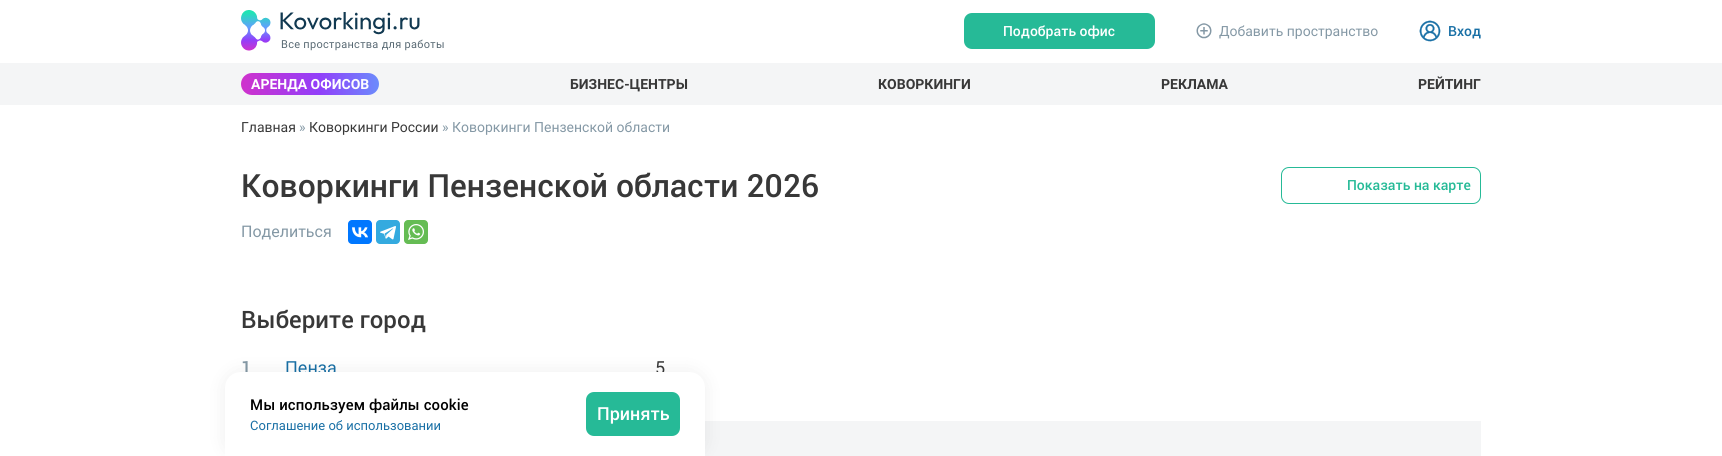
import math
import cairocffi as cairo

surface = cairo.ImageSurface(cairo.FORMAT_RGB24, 1722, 456)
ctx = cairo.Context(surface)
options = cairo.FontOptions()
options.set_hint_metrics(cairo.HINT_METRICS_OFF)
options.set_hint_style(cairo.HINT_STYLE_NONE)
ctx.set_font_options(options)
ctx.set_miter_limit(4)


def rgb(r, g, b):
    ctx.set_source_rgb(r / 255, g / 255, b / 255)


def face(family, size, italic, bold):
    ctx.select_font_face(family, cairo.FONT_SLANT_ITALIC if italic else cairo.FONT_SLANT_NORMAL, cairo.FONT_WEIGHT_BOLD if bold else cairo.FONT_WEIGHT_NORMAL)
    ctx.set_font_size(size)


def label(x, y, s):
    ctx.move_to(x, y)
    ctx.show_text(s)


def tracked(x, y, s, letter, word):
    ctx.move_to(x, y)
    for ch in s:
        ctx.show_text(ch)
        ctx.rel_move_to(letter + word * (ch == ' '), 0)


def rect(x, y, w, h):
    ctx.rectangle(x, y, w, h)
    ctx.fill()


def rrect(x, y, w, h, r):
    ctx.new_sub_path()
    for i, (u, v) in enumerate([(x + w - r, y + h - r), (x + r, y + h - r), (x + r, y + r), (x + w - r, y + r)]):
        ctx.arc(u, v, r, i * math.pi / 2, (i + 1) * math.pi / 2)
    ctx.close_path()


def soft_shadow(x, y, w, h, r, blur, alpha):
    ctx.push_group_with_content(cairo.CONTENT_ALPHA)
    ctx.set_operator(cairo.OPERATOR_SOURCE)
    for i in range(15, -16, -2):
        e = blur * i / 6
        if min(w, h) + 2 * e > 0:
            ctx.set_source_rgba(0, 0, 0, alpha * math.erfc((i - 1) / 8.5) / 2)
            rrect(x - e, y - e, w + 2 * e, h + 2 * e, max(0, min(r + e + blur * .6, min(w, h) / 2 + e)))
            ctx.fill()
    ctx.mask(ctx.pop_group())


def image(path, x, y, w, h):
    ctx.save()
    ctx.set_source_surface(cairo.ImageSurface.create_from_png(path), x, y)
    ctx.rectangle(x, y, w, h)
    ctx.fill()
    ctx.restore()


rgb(255, 255, 255)
ctx.paint()
rgb(38, 186, 151)
rrect(964, 13, 191, 36, 8)
ctx.fill()
face('Roboto Medium', 14, 0, 0)
rgb(255, 255, 255)
label(1003, 36, 'Подобрать офис')
image('image0.png', 1196, 23, 16, 16)
face('Roboto', 14, 0, 0)
rgb(132, 152, 165)
label(1219, 36, 'Добавить пространство')
image('image1.png', 1419, 20, 22, 22)
face('Roboto Medium', 14, 0, 0)
rgb(24, 111, 165)
label(1448, 36, 'Вход')
image('image2.png', 241, 10, 179, 41)
face('Roboto', 11, 0, 0)
rgb(88, 105, 115)
tracked(281, 48, 'Все пространства для работы', 0.3, 0)
rgb(244, 245, 246)
rect(0, 63, 1722, 42)
gradient = cairo.LinearGradient(241, 84, 395, 84)
gradient.add_color_stop_rgba(0, 0.812, 0.196, 0.8, 1)
gradient.add_color_stop_rgba(0.51, 0.569, 0.247, 0.98, 1)
gradient.add_color_stop_rgba(1, 0.38, 0.627, 0.992, 1)
ctx.set_source(gradient)
rrect(241, 73, 138, 22, 11)
ctx.fill()
face('Roboto', 14, 0, 1)
rgb(255, 255, 255)
label(251, 89, 'АРЕНДА ОФИСОВ')
rgb(56, 56, 56)
label(570, 89, 'БИЗНЕС-ЦЕНТРЫ')
label(878, 89, 'КОВОРКИНГИ')
label(1161, 89, 'РЕКЛАМА')
label(1418, 89, 'РЕЙТИНГ')
face('Roboto', 14, 0, 0)
label(241, 132, 'Главная')
rgb(132, 152, 165)
label(299, 132, '»')
rgb(56, 56, 56)
label(309, 132, 'Коворкинги России')
rgb(132, 152, 165)
label(442, 132, '» Коворкинги Пензенской области')
face('Roboto Medium', 32, 0, 0)
rgb(56, 56, 56)
label(241, 197, 'Коворкинги Пензенской области 2026')
rrect(1281.5, 167.5, 199, 36, 7.5)
rgb(38, 186, 151)
ctx.set_line_width(1)
ctx.stroke()
face('Roboto Medium', 14, 0, 0)
label(1347, 190, 'Показать на карте')
face('Roboto', 16, 0, 0)
rgb(132, 152, 165)
label(241, 237, 'Поделиться')
rgb(0, 119, 255)
rrect(348, 220, 24, 24, 4)
ctx.fill()
image('image3.png', 352, 227, 16, 11)
rgb(52, 170, 223)
rrect(376, 220, 24, 24, 4)
ctx.fill()
image('image4.png', 380, 226, 16, 14)
rgb(101, 188, 84)
rrect(404, 220, 24, 24, 4)
ctx.fill()
image('image5.png', 408, 224, 16, 16)
face('Roboto Medium', 24, 0, 0)
rgb(56, 56, 56)
label(241, 328, 'Выберите город')
face('Roboto Medium', 18, 0, 0)
rgb(132, 152, 165)
label(241, 374, '1')
face('Roboto', 18, 0, 0)
rgb(24, 111, 165)
label(285, 374, 'Пенза')
rgb(56, 56, 56)
label(655, 374, '5')
rgb(244, 245, 246)
rect(705, 421, 776, 35)
rgb(0, 0, 0)
soft_shadow(225, 372, 480, 84, 16, 10, 0.07)
rgb(255, 255, 255)
ctx.new_path()
ctx.move_to(241, 372)
ctx.line_to(689, 372)
ctx.curve_to(698, 372, 705, 379, 705, 388)
ctx.line_to(705, 456)
ctx.line_to(225, 456)
ctx.line_to(225, 388)
ctx.curve_to(225, 379, 232, 372, 241, 372)
ctx.close_path()
ctx.fill()
face('Roboto Medium', 15, 0, 0)
rgb(0, 0, 0)
tracked(250, 410, 'Мы используем файлы cookie', 0.1, 0)
face('Roboto', 13, 0, 0)
rgb(24, 111, 165)
label(250, 430, 'Соглашение об использовании')
rgb(38, 186, 151)
rrect(586, 392, 94, 44, 8)
ctx.fill()
face('Roboto Medium', 18, 0, 0)
rgb(255, 255, 255)
label(597, 420, 'Принять')
surface.write_to_png('render.png')
